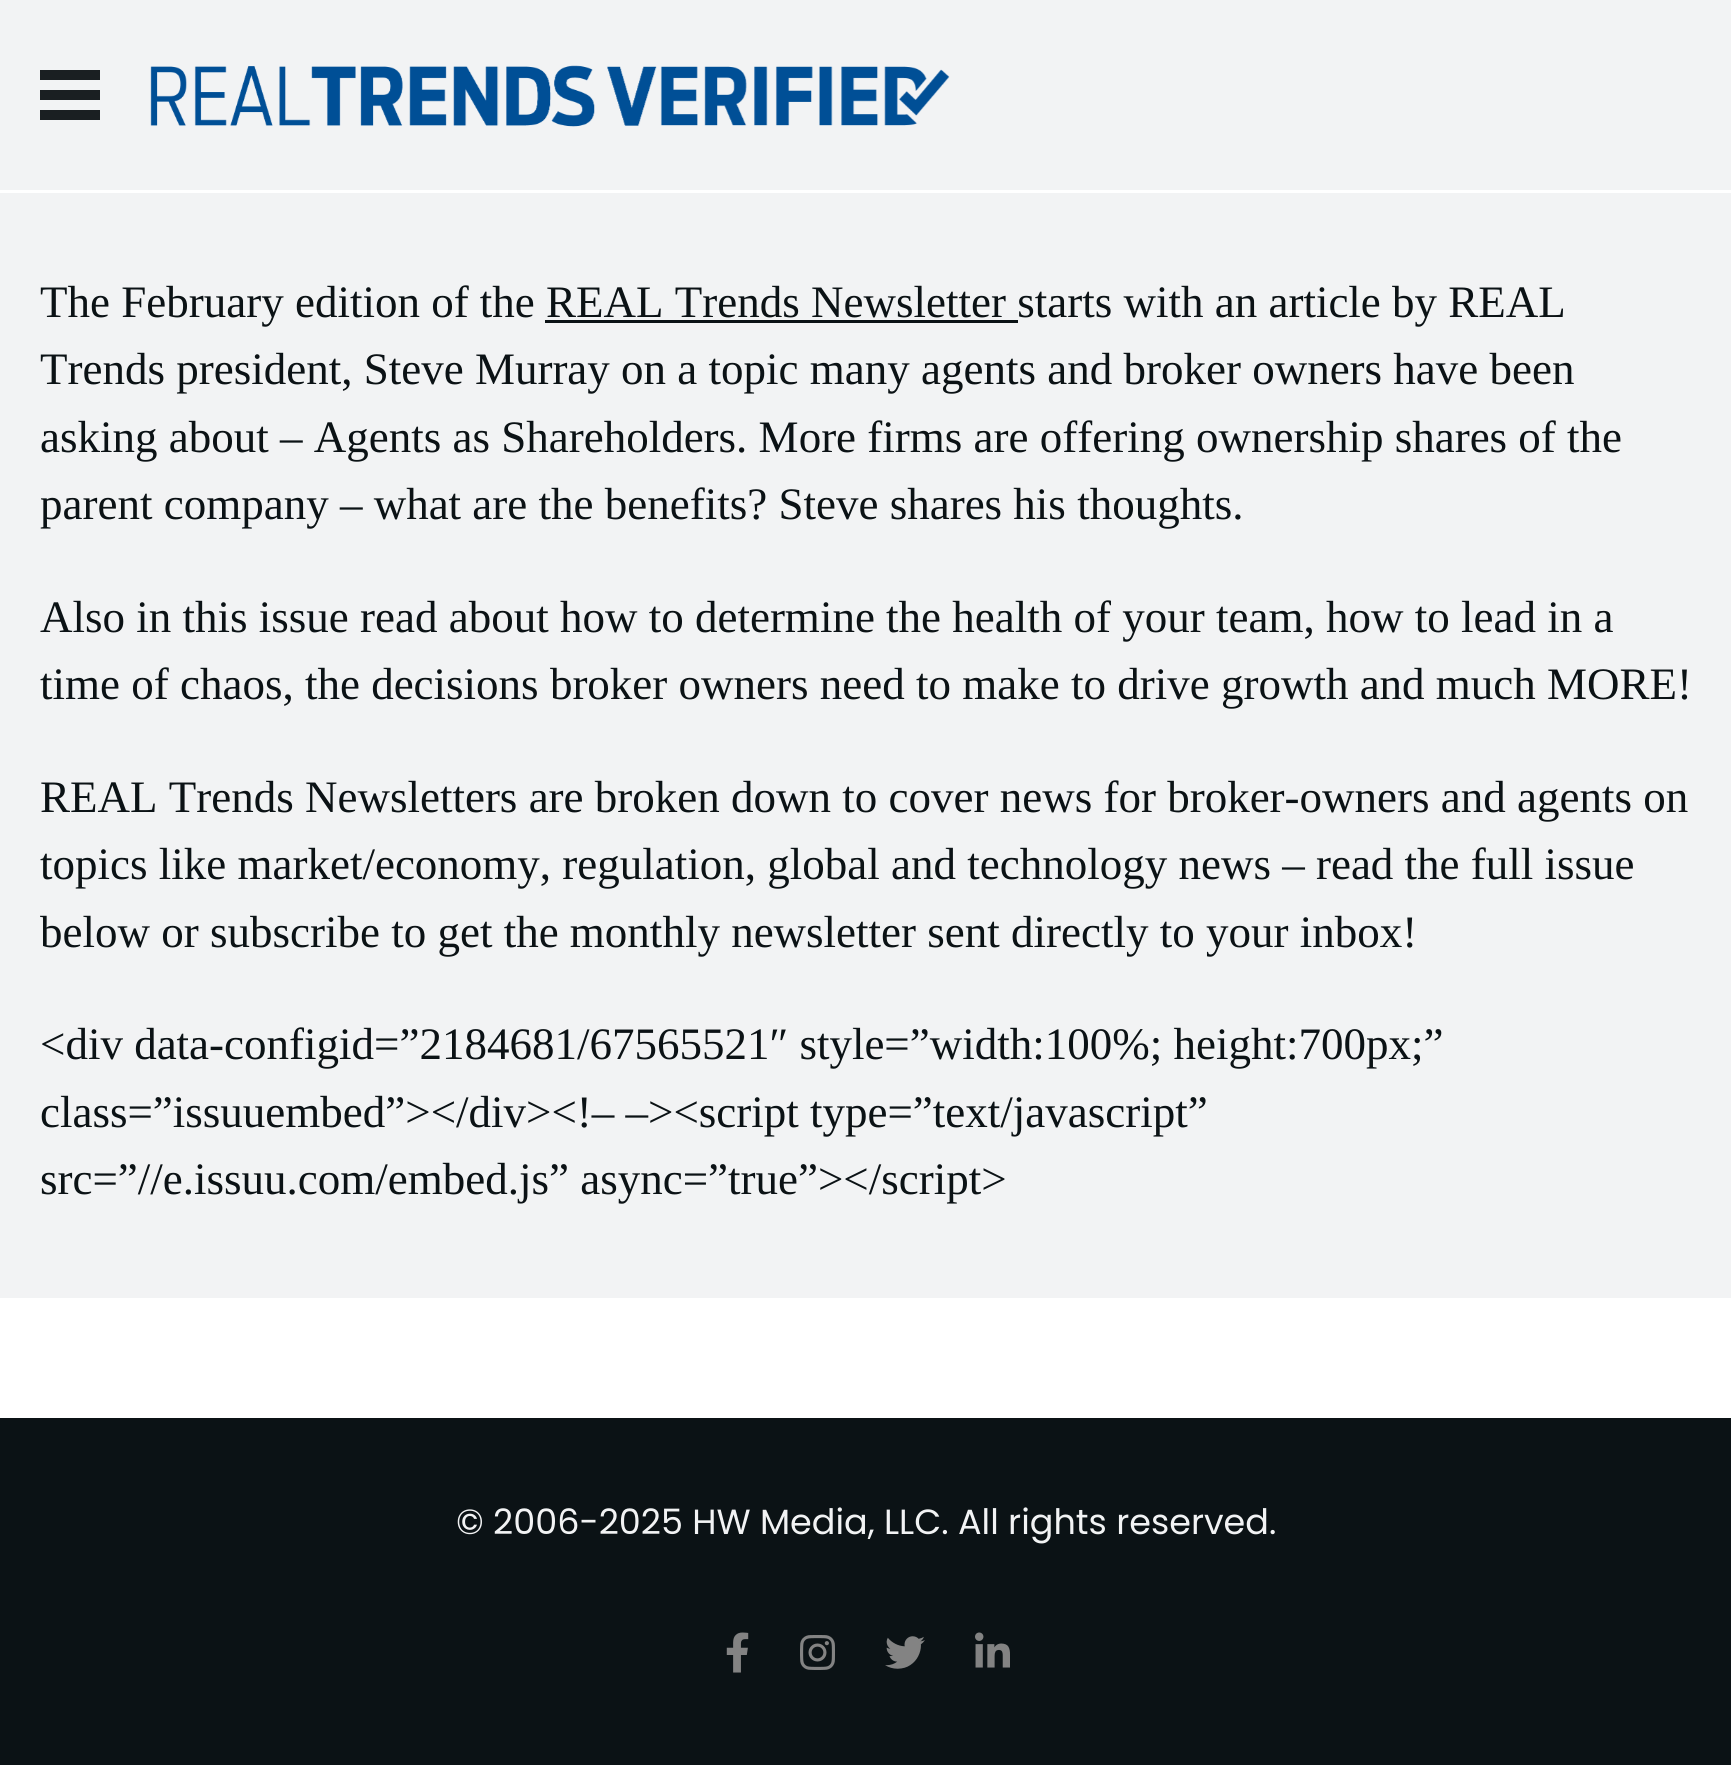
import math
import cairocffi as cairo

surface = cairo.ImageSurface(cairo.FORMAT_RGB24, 1731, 1765)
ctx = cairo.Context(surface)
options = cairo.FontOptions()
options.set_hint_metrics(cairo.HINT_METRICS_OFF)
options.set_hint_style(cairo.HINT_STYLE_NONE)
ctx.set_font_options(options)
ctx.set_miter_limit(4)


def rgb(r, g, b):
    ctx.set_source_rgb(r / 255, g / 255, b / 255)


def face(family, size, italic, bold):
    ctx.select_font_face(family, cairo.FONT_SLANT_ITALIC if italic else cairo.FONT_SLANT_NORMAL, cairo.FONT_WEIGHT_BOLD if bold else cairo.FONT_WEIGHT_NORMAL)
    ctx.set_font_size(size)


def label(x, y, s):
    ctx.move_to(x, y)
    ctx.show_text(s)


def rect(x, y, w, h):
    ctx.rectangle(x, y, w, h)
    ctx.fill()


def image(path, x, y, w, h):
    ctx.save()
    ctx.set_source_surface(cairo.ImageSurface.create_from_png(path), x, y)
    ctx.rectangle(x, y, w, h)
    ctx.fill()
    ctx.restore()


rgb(255, 255, 255)
ctx.paint()
rgb(242, 243, 244)
rect(0, 0, 1731, 190)
rgb(26, 31, 34)
rect(40, 70, 60, 10)
rect(40, 90, 60, 10)
rect(40, 110, 60, 10)
image('image0.png', 150, 65, 800, 62)
rgb(242, 243, 244)
rect(0, 193, 1731, 1105)
face('Liberation Serif', 45, 0, 0)
rgb(11, 18, 21)
label(40, 317, 'The February edition of the REAL Trends Newsletter starts with an article by REAL')
rect(545, 320, 473, 3)
label(40, 384, 'Trends president, Steve Murray on a topic many agents and broker owners have been')
label(40, 452, 'asking about – Agents as Shareholders. More firms are offering ownership shares of the')
label(40, 519, 'parent company – what are the benefits? Steve shares his thoughts.')
label(40, 632, 'Also in this issue read about how to determine the health of your team, how to lead in a')
label(40, 699, 'time of chaos, the decisions broker owners need to make to drive growth and much MORE!')
label(40, 812, 'REAL Trends Newsletters are broken down to cover news for broker-owners and agents on')
label(40, 879, 'topics like market/economy, regulation, global and technology news – read the full issue')
label(40, 947, 'below or subscribe to get the monthly newsletter sent directly to your inbox!')
label(40, 1059, '<div data-configid=”2184681/67565521″ style=”width:100%; height:700px;”')
label(40, 1127, 'class=”issuuembed”></div><!– –><script type=”text/javascript”')
label(40, 1194, 'src=”//e.issuu.com/embed.js” async=”true”></script>')
rect(0, 1418, 1731, 347)
face('Poppins', 35, 0, 0)
rgb(242, 243, 244)
label(456, 1534, '© 2006-2025 HW Media, LLC. All rights reserved.')
image('image1.png', 726, 1632, 23, 41)
image('image2.png', 800, 1635, 35, 35)
image('image3.png', 885, 1636, 40, 33)
image('image4.png', 975, 1632, 35, 36)
surface.write_to_png('render.png')
